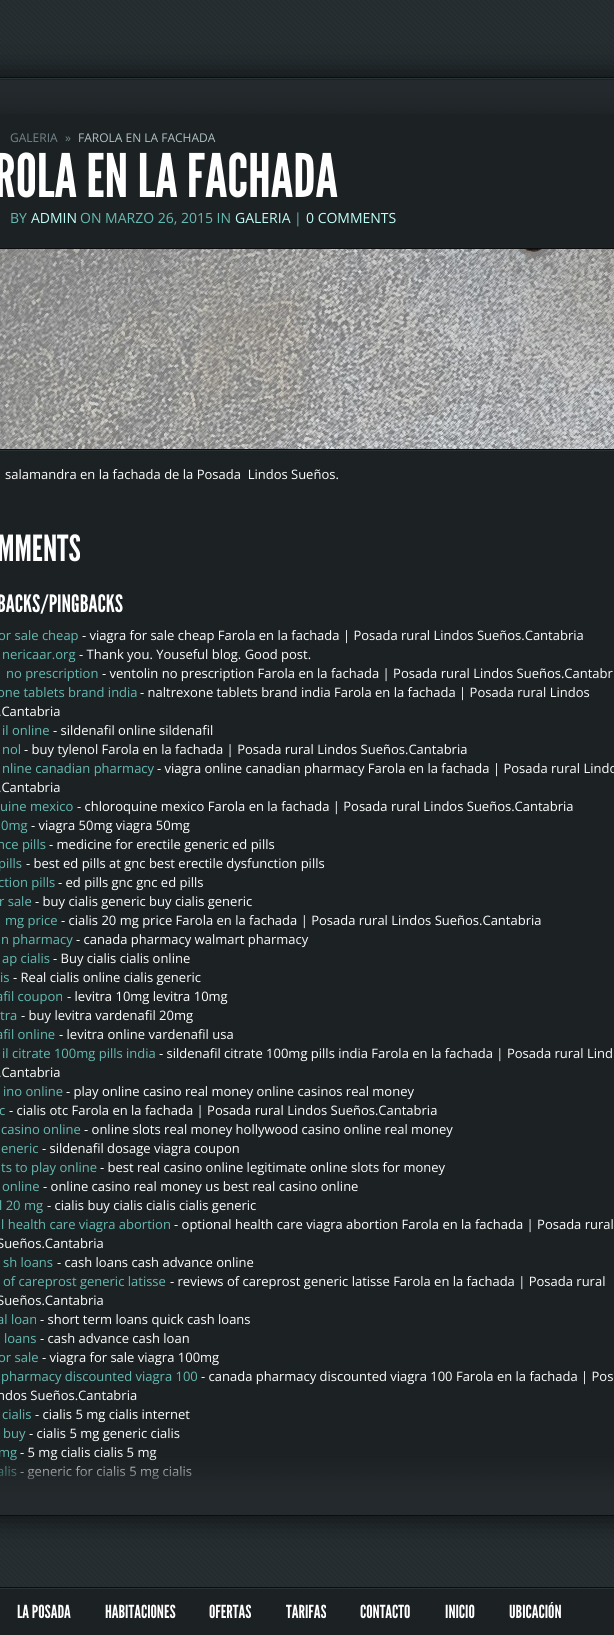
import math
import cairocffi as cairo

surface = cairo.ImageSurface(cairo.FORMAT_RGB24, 614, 1635)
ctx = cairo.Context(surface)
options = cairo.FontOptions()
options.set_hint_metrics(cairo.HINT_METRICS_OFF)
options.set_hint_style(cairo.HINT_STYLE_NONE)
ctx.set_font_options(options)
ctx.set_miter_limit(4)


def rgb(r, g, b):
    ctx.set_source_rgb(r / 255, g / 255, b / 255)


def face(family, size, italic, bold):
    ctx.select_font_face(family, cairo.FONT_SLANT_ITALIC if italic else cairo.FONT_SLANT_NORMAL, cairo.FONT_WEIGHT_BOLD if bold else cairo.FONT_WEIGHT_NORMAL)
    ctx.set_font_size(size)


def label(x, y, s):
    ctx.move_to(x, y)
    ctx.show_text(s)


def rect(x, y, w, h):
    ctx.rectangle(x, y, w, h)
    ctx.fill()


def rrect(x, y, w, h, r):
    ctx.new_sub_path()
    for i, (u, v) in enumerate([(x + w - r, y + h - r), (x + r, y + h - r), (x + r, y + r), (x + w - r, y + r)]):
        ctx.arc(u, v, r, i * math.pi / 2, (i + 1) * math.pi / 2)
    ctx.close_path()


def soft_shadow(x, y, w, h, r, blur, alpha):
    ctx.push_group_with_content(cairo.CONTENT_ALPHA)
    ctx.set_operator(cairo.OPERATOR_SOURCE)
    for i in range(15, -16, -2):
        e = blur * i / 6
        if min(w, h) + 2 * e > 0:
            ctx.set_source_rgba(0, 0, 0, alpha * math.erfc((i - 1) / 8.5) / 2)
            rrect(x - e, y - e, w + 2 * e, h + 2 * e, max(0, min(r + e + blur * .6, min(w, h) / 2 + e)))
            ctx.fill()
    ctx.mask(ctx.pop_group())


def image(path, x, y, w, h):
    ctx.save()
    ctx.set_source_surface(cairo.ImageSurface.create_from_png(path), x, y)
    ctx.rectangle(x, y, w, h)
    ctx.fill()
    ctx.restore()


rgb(38, 46, 49)
ctx.paint()
image('image0.png', 0, 0, 614, 1635)
ctx.save()
ctx.set_fill_rule(cairo.FILL_RULE_EVEN_ODD)
ctx.new_path()
ctx.move_to(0, 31)
ctx.line_to(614, 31)
ctx.line_to(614, 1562)
ctx.line_to(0, 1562)
ctx.close_path()
ctx.move_to(-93, 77)
ctx.line_to(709, 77)
ctx.line_to(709, 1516)
ctx.line_to(-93, 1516)
ctx.close_path()
ctx.clip()
rgb(0, 0, 0)
soft_shadow(-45, 77, 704, 1439, 0, 15, 0.7)
ctx.restore()
ctx.set_source_rgba(0.106, 0.125, 0.133, 0.9)
rect(0, 79, 614, 1414)
ctx.save()
ctx.rectangle(0, 78, 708, 1437)
ctx.clip()
rgb(41, 50, 53)
ctx.set_fill_rule(cairo.FILL_RULE_EVEN_ODD)
ctx.new_path()
ctx.move_to(-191, -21)
ctx.line_to(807, -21)
ctx.line_to(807, 1614)
ctx.line_to(-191, 1614)
ctx.close_path()
ctx.move_to(-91, 79)
ctx.line_to(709, 79)
ctx.line_to(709, 1516)
ctx.line_to(-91, 1516)
ctx.close_path()
ctx.fill()
ctx.restore()
ctx.rectangle(-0.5, 77.5, 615, 1438)
rgb(11, 13, 14)
ctx.set_line_width(1)
ctx.stroke()
image('image1.png', 0, 80, 614, 34)
face('Open Sans', 12, 0, 0)
rgb(116, 133, 138)
label(10, 142, 'GALERIA')
label(65, 142, '»')
rgb(175, 193, 198)
label(78, 142, 'FAROLA EN LA FACHADA')
face('League Gothic', 60, 0, 0)
rgb(255, 255, 255)
label(-6, 197, 'ROLA EN LA FACHADA')
face('Open Sans', 14, 0, 0)
rgb(101, 186, 179)
label(10, 223, 'BY')
rgb(192, 255, 250)
label(31, 223, 'ADMIN')
rgb(101, 186, 179)
label(80, 223, 'ON MARZO 26, 2015 IN')
rgb(192, 255, 250)
label(235, 223, 'GALERIA')
rgb(101, 186, 179)
label(294, 223, '|')
rgb(192, 255, 250)
label(306, 223, '0 COMMENTS')
rgb(41, 50, 53)
ctx.new_path()
ctx.move_to(-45, 450)
ctx.line_to(-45, 451)
ctx.line_to(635, 451)
ctx.line_to(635, 249)
ctx.line_to(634, 249)
ctx.line_to(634, 450)
ctx.close_path()
ctx.fill()
ctx.rectangle(-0.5, 248.5, 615, 201)
rgb(11, 13, 14)
ctx.stroke()
image('image2.png', 0, 249, 614, 200)
face('Open Sans', 13, 0, 0)
rgb(255, 255, 255)
label(5, 479, 'salamandra en la fachada de la Posada  Lindos Sueños.')
face('League Gothic', 36, 0, 0)
label(-3, 561, 'MMENTS')
face('League Gothic', 24, 0, 0)
label(-3, 612, 'BACKS/PINGBACKS')
face('Open Sans', 13, 0, 0)
rgb(101, 186, 179)
label(-2, 640, 'or sale cheap')
rgb(255, 255, 255)
label(82, 640, '- viagra for sale cheap Farola en la fachada | Posada rural Lindos Sueños.Cantabria')
rgb(101, 186, 179)
label(2, 659, 'nericaar.org')
rgb(255, 255, 255)
label(79, 659, '- Thank you. Youseful blog. Good post.')
rgb(101, 186, 179)
label(6, 678, 'no prescription')
rgb(255, 255, 255)
label(102, 678, '- ventolin no prescription Farola en la fachada | Posada rural Lindos Sueños.Cantabr')
rgb(101, 186, 179)
label(-3, 697, 'one tablets brand india')
rgb(255, 255, 255)
label(140, 697, '- naltrexone tablets brand india Farola en la fachada | Posada rural Lindos')
label(-2, 716, '.Cantabria')
rgb(101, 186, 179)
label(2, 735, 'il online')
rgb(255, 255, 255)
label(53, 735, '- sildenafil online sildenafil')
rgb(101, 186, 179)
label(2, 754, 'nol')
rgb(255, 255, 255)
label(24, 754, '- buy tylenol Farola en la fachada | Posada rural Lindos Sueños.Cantabria')
rgb(101, 186, 179)
label(2, 773, 'nline canadian pharmacy')
rgb(255, 255, 255)
label(157, 773, '- viagra online canadian pharmacy Farola en la fachada | Posada rural Lindo')
label(-2, 792, '.Cantabria')
rgb(101, 186, 179)
label(0, 811, 'uine mexico')
rgb(255, 255, 255)
label(77, 811, '- chloroquine mexico Farola en la fachada | Posada rural Lindos Sueños.Cantabria')
rgb(101, 186, 179)
label(1, 830, '0mg')
rgb(255, 255, 255)
label(31, 830, '- viagra 50mg viagra 50mg')
rgb(101, 186, 179)
label(-3, 849, 'nce pills')
rgb(255, 255, 255)
label(49, 849, '- medicine for erectile generic ed pills')
rgb(101, 186, 179)
label(-2, 868, 'pills')
rgb(255, 255, 255)
label(26, 868, '- best ed pills at gnc best erectile dysfunction pills')
rgb(101, 186, 179)
label(-2, 887, 'ction pills')
rgb(255, 255, 255)
label(58, 887, '- ed pills gnc gnc ed pills')
rgb(101, 186, 179)
label(-1, 906, 'r sale')
rgb(255, 255, 255)
label(35, 906, '- buy cialis generic buy cialis generic')
rgb(101, 186, 179)
label(5, 925, 'mg price')
rgb(255, 255, 255)
label(61, 925, '- cialis 20 mg price Farola en la fachada | Posada rural Lindos Sueños.Cantabria')
rgb(101, 186, 179)
label(1, 944, 'n pharmacy')
rgb(255, 255, 255)
label(76, 944, '- canada pharmacy walmart pharmacy')
rgb(101, 186, 179)
label(2, 963, 'ap cialis')
rgb(255, 255, 255)
label(53, 963, '- Buy cialis cialis online')
rgb(101, 186, 179)
label(0, 982, 'is')
rgb(255, 255, 255)
label(13, 982, '- Real cialis online cialis generic')
rgb(101, 186, 179)
label(-4, 1001, 'afil coupon')
rgb(255, 255, 255)
label(67, 1001, '- levitra 10mg levitra 10mg')
rgb(101, 186, 179)
label(0, 1020, 'tra')
rgb(255, 255, 255)
label(21, 1020, '- buy levitra vardenafil 20mg')
rgb(101, 186, 179)
label(-4, 1039, 'afil online')
rgb(255, 255, 255)
label(59, 1039, '- levitra online vardenafil usa')
rgb(101, 186, 179)
label(2, 1058, 'il citrate 100mg pills india')
rgb(255, 255, 255)
label(159, 1058, '- sildenafil citrate 100mg pills india Farola en la fachada | Posada rural Lind')
label(-2, 1077, '.Cantabria')
rgb(101, 186, 179)
label(3, 1096, 'ino online')
rgb(255, 255, 255)
label(66, 1096, '- play online casino real money online casinos real money')
rgb(101, 186, 179)
label(-1, 1115, 'c')
rgb(255, 255, 255)
label(9, 1115, '- cialis otc Farola en la fachada | Posada rural Lindos Sueños.Cantabria')
rgb(101, 186, 179)
label(1, 1134, 'casino online')
rgb(255, 255, 255)
label(84, 1134, '- online slots real money hollywood casino online real money')
rgb(101, 186, 179)
label(1, 1153, 'eneric')
rgb(255, 255, 255)
label(42, 1153, '- sildenafil dosage viagra coupon')
rgb(101, 186, 179)
label(1, 1172, 'ts to play online')
rgb(255, 255, 255)
label(100, 1172, '- best real casino online legitimate online slots for money')
rgb(101, 186, 179)
label(2, 1191, 'online')
rgb(255, 255, 255)
label(43, 1191, '- online casino real money us best real casino online')
rgb(101, 186, 179)
label(-1, 1210, 'l 20 mg')
rgb(255, 255, 255)
label(47, 1210, '- cialis buy cialis cialis cialis generic')
rgb(101, 186, 179)
label(1, 1229, 'l health care viagra abortion')
rgb(255, 255, 255)
label(174, 1229, '- optional health care viagra abortion Farola en la fachada | Posada rural')
label(-3, 1248, 'Sueños.Cantabria')
rgb(101, 186, 179)
label(3, 1267, 'sh loans')
rgb(255, 255, 255)
label(57, 1267, '- cash loans cash advance online')
rgb(101, 186, 179)
label(3, 1286, 'of careprost generic latisse')
rgb(255, 255, 255)
label(170, 1286, '- reviews of careprost generic latisse Farola en la fachada | Posada rural')
label(-3, 1305, 'Sueños.Cantabria')
rgb(101, 186, 179)
label(-3, 1324, 'al loan')
rgb(255, 255, 255)
label(40, 1324, '- short term loans quick cash loans')
rgb(101, 186, 179)
label(4, 1343, 'loans')
rgb(255, 255, 255)
label(40, 1343, '- cash advance cash loan')
rgb(101, 186, 179)
label(-2, 1362, 'or sale')
rgb(255, 255, 255)
label(42, 1362, '- viagra for sale viagra 100mg')
rgb(101, 186, 179)
label(1, 1381, 'pharmacy discounted viagra 100')
rgb(255, 255, 255)
label(201, 1381, '- canada pharmacy discounted viagra 100 Farola en la fachada | Pos')
label(-3, 1400, 'ndos Sueños.Cantabria')
rgb(101, 186, 179)
label(2, 1419, 'cialis')
rgb(255, 255, 255)
label(35, 1419, '- cialis 5 mg cialis internet')
rgb(101, 186, 179)
label(3, 1438, 'buy')
rgb(255, 255, 255)
label(29, 1438, '- cialis 5 mg generic cialis')
rgb(101, 186, 179)
label(-2, 1457, 'mg')
rgb(255, 255, 255)
label(20, 1457, '- 5 mg cialis cialis 5 mg')
rgb(101, 186, 179)
label(-3, 1476, 'alis')
rgb(255, 255, 255)
label(20, 1476, '- generic for cialis 5 mg cialis')
image('image3.png', 0, 1454, 614, 61)
ctx.set_source_rgba(0.106, 0.125, 0.133, 0.9)
rect(0, 1589, 614, 46)
rgb(41, 50, 53)
rect(0, 1588, 614, 1)
rgb(11, 13, 14)
rect(0, 1587, 614, 1)
face('League Gothic', 18, 0, 0)
rgb(255, 255, 255)
label(17, 1618, 'LA POSADA')
label(105, 1618, 'HABITACIONES')
label(209, 1618, 'OFERTAS')
label(286, 1618, 'TARIFAS')
label(360, 1618, 'CONTACTO')
label(445, 1618, 'INICIO')
label(509, 1618, 'UBICACIÓN')
surface.write_to_png('render.png')
